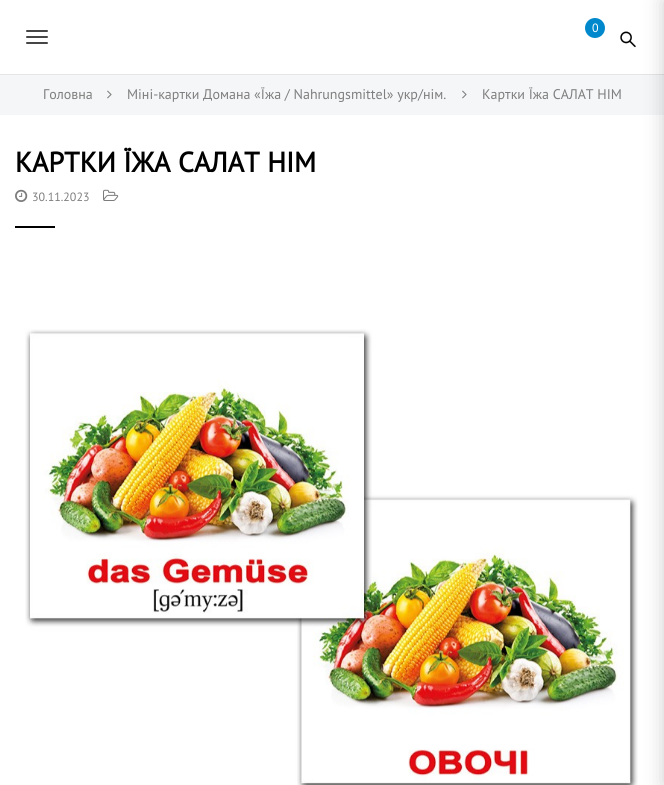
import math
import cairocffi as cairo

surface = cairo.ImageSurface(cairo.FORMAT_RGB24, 664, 785)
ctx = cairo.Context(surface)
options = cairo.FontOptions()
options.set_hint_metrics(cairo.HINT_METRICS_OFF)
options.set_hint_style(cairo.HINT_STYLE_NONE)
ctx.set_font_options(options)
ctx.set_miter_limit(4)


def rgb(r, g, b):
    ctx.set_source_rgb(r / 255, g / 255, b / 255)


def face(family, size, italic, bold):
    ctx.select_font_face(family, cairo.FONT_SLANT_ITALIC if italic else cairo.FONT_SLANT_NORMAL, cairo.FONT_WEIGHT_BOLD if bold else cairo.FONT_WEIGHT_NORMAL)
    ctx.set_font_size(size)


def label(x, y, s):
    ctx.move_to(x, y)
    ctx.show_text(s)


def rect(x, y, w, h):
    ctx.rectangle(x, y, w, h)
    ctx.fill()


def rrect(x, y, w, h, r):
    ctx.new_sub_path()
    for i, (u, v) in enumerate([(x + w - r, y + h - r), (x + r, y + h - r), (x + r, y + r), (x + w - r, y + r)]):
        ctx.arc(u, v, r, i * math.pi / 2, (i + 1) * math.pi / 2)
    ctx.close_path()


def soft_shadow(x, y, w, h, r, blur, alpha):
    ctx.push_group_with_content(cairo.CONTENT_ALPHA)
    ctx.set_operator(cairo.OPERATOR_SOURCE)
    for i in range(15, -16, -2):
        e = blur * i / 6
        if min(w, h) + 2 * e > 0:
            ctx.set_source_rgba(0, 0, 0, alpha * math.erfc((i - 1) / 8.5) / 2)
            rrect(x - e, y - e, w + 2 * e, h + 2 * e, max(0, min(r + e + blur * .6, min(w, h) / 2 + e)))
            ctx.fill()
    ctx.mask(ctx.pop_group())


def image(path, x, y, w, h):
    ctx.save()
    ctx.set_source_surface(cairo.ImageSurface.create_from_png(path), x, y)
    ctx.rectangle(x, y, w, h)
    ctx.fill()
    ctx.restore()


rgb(255, 255, 255)
ctx.paint()
rgb(229, 229, 229)
rect(0, 74, 664, 1)
rgb(0, 136, 204)
ctx.arc(595, 28, 10, 0, 2 * math.pi)
ctx.fill()
face('PT Sans', 12, 0, 0)
rgb(255, 255, 255)
label(592, 32, '0')
rgb(70, 70, 70)
rrect(26, 30, 22, 2, 1)
ctx.fill()
rrect(26, 36, 22, 2, 1)
ctx.fill()
rrect(26, 42, 22, 2, 1)
ctx.fill()
image('image0.png', 620, 31, 16, 17)
rgb(245, 246, 248)
rect(0, 75, 664, 40)
image('image4.png', 25, 329, 613, 456)
rgb(0, 0, 0)
soft_shadow(664, 0, 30, 785, 0, 10, 0.2)
face('PT Sans', 14, 0, 0)
rgb(126, 126, 126)
label(43, 99, 'Головна')
image('image1.png', 107, 90, 5, 9)
label(127, 99, 'Міні-картки Домана «Їжа / Nahrungsmittel» укр/нім.')
image('image1.png', 462, 90, 5, 9)
label(482, 99, 'Картки Їжа САЛАТ НІМ')
face('PT Sans', 28, 0, 1)
rgb(0, 0, 0)
label(15, 172, 'КАРТКИ ЇЖА САЛАТ НІМ')
image('image2.png', 15, 189, 13, 13)
face('PT Sans', 12, 0, 0)
rgb(126, 126, 126)
label(32, 201, '30.11.2023')
image('image3.png', 103, 189, 16, 12)
rgb(0, 0, 0)
rect(15, 226, 40, 2)
surface.write_to_png('render.png')
